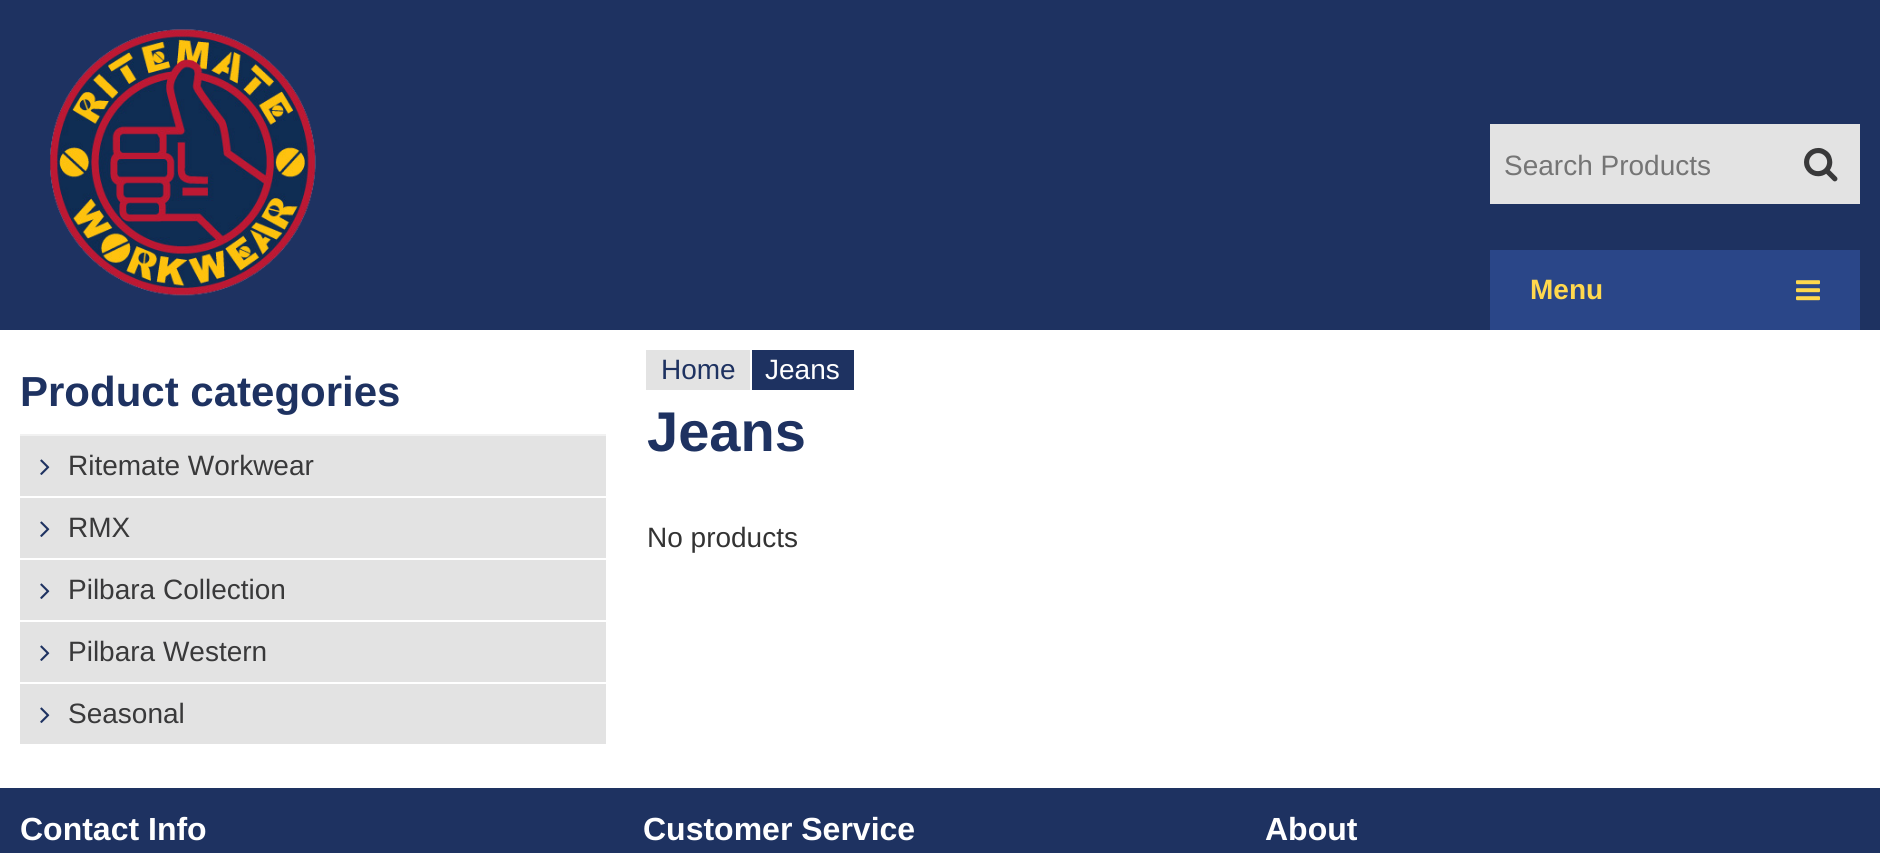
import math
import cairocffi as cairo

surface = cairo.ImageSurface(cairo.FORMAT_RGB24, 1880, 853)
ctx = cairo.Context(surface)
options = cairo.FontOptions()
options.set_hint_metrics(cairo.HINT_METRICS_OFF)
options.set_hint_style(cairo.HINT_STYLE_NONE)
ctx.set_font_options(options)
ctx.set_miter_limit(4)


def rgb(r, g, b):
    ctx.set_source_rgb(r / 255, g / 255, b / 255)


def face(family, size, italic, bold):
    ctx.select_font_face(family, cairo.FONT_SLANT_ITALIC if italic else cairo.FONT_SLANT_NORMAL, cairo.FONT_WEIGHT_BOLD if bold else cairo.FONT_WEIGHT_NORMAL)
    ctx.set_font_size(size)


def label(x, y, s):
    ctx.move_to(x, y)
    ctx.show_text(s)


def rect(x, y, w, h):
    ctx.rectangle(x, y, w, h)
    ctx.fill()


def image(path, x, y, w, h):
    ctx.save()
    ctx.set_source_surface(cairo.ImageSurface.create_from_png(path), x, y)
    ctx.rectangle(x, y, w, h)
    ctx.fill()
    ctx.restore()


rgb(255, 255, 255)
ctx.paint()
rgb(30, 50, 97)
rect(0, 0, 1880, 330)
image('image0.png', 50, 29, 266, 267)
rgb(227, 227, 227)
rect(1490, 124, 370, 80)
face('Liberation Sans', 28, 0, 0)
rgb(117, 117, 117)
label(1504, 175, 'Search Products')
image('image1.png', 1804, 147, 34, 35)
rgb(42, 70, 136)
rect(1490, 250, 370, 80)
face('Liberation Sans', 28, 0, 1)
rgb(255, 216, 77)
label(1530, 299, 'Menu')
image('image2.png', 1796, 280, 24, 21)
rgb(241, 241, 241)
rect(20, 434, 586, 2)
face('Liberation Sans', 42, 0, 1)
rgb(30, 50, 97)
label(20, 406, 'Product categories')
rgb(227, 227, 227)
rect(20, 436, 586, 60)
image('image3.png', 40, 459, 10, 16)
face('Liberation Sans', 28, 0, 0)
rgb(57, 57, 58)
label(68, 475, 'Ritemate Workwear')
rgb(227, 227, 227)
rect(20, 498, 586, 60)
image('image3.png', 40, 521, 10, 16)
rgb(57, 57, 58)
label(68, 537, 'RMX')
rgb(227, 227, 227)
rect(20, 560, 586, 60)
image('image3.png', 40, 583, 10, 16)
rgb(57, 57, 58)
label(68, 599, 'Pilbara Collection')
rgb(227, 227, 227)
rect(20, 622, 586, 60)
image('image3.png', 40, 645, 10, 16)
rgb(57, 57, 58)
label(68, 661, 'Pilbara Western')
rgb(227, 227, 227)
rect(20, 684, 586, 60)
image('image3.png', 40, 707, 10, 16)
rgb(57, 57, 58)
label(68, 723, 'Seasonal')
rgb(227, 227, 227)
rect(646, 350, 104, 40)
rgb(30, 50, 97)
label(661, 379, 'Home')
rect(752, 350, 102, 40)
rgb(255, 255, 255)
label(765, 379, 'Jeans')
face('Liberation Sans', 56, 0, 1)
rgb(30, 50, 97)
label(647, 451, 'Jeans')
face('Liberation Sans', 28, 0, 0)
rgb(51, 51, 51)
label(647, 547, 'No products')
rgb(30, 50, 97)
rect(0, 788, 1880, 65)
face('Liberation Sans', 32, 0, 1)
rgb(255, 255, 255)
label(20, 840, 'Contact Info')
label(643, 840, 'Customer Service')
label(1265, 840, 'About')
surface.write_to_png('render.png')
